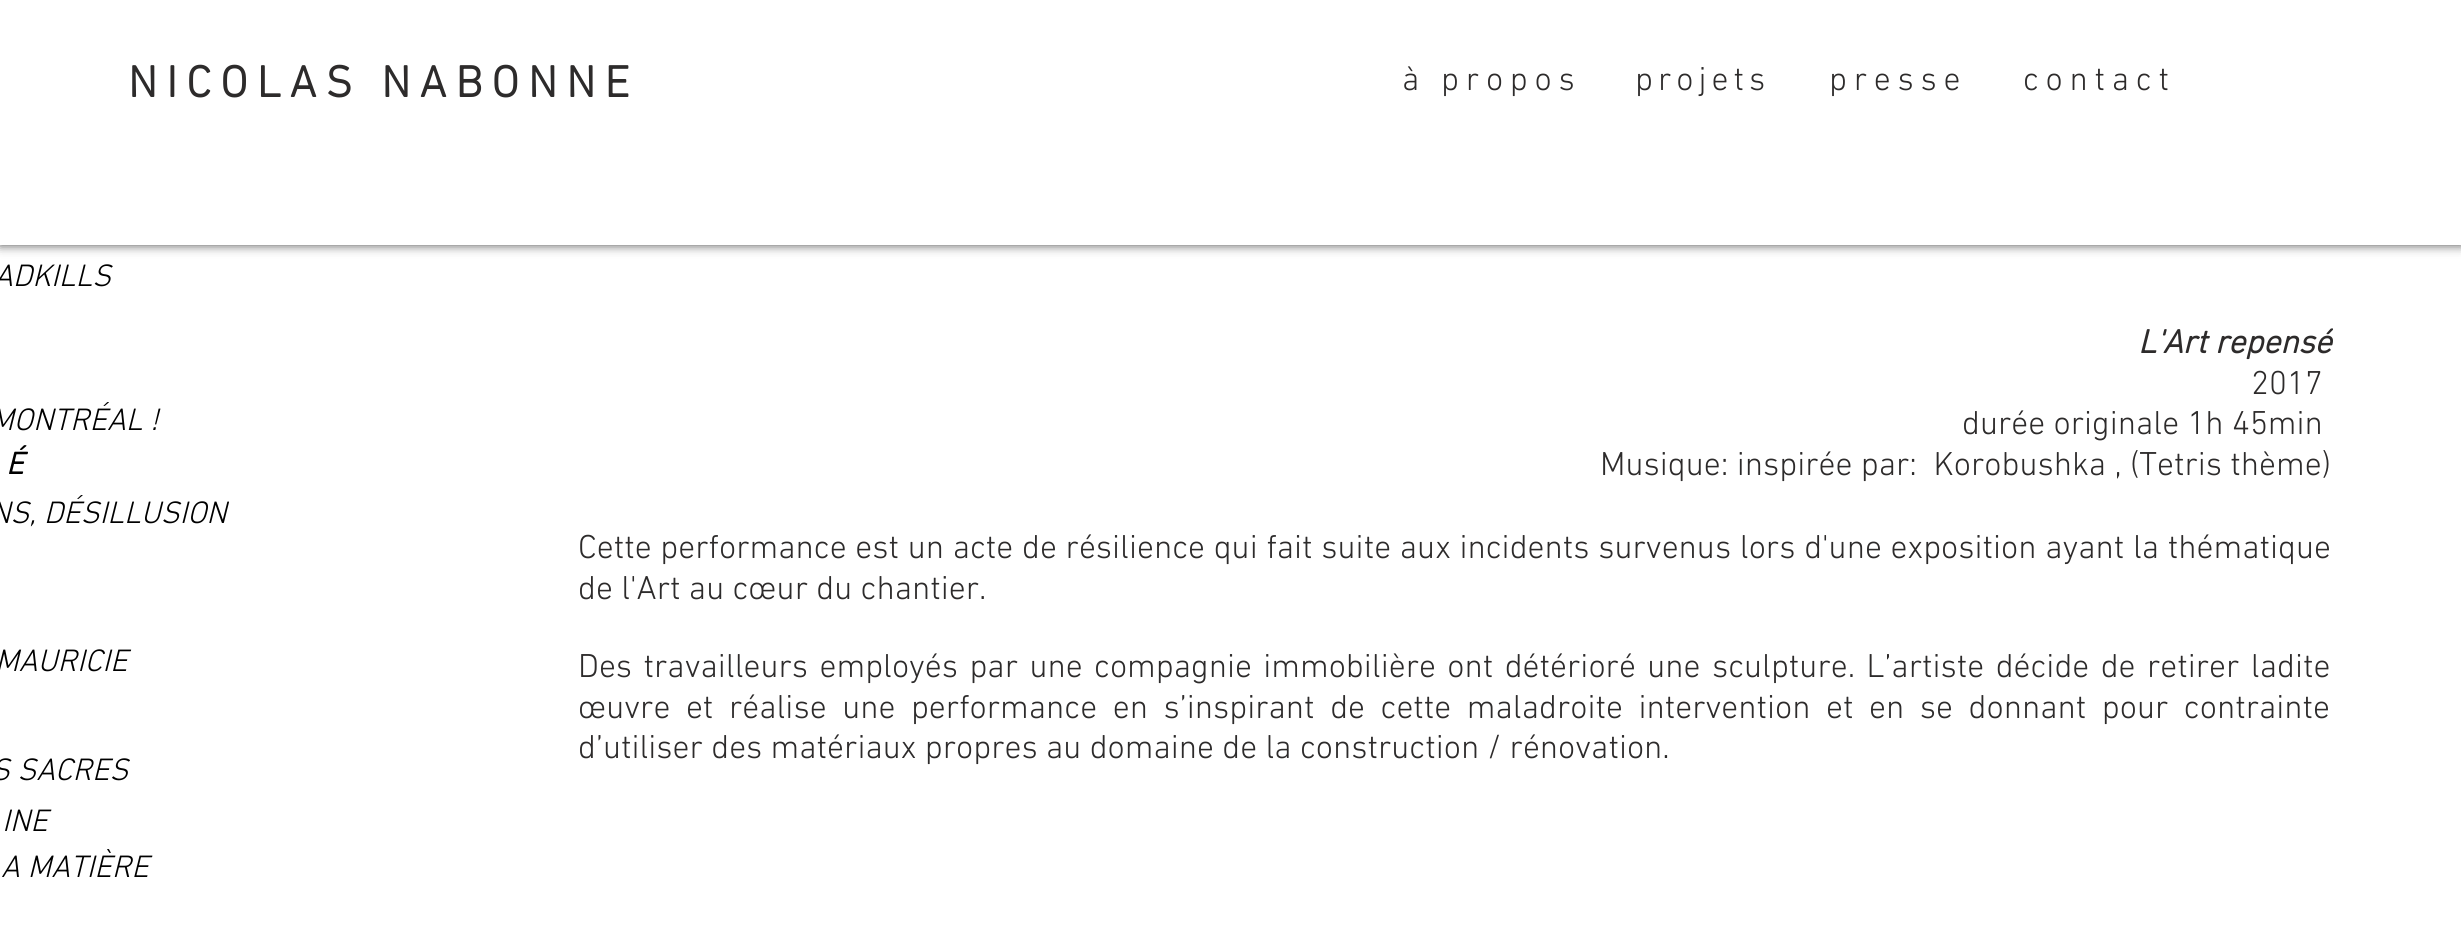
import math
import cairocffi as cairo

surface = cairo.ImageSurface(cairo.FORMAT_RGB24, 2461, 932)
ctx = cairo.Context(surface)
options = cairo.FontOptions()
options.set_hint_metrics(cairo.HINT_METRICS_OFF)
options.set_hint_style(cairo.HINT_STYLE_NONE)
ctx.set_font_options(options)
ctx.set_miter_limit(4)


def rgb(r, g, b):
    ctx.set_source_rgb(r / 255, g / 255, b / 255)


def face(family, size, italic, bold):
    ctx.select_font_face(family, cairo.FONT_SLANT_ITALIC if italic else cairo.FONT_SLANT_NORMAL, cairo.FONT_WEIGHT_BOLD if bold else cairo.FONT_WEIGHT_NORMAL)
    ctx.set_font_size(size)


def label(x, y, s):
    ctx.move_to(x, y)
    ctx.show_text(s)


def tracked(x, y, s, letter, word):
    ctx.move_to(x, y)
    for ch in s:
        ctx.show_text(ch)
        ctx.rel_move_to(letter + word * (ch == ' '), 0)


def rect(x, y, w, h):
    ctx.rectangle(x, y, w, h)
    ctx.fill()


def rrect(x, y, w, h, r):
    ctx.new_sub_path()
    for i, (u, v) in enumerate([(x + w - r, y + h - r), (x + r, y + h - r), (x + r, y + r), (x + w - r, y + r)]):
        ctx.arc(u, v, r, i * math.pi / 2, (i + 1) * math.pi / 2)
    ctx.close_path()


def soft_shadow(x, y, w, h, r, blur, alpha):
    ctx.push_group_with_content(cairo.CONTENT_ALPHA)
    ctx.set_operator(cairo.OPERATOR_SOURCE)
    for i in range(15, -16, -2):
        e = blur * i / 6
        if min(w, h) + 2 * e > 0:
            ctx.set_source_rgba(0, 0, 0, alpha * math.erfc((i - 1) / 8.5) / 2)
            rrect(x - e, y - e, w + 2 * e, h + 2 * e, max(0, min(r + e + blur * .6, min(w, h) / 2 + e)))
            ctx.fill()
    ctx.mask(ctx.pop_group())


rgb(255, 255, 255)
ctx.paint()
rgb(0, 0, 0)
soft_shadow(0, 0, 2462, 245, 0, 5.5, 0.7)
rgb(255, 255, 255)
rect(0, 0, 2461, 245)
face('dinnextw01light', 45, 0, 1)
rgb(45, 43, 43)
tracked(128, 97, 'NICOLAS NABONNE', 9, 0)
face('dinnextw01light Light', 33.75, 0, 0)
tracked(1402, 90, 'à propos', 6.75, 0)
tracked(1635, 90, 'projets', 5, 0)
tracked(1829, 90, 'presse', 6.75, 0)
tracked(2023, 90, 'contact', 6.75, 0)
face('dinnextw01light Light', 31.5, 1, 0)
rgb(0, 0, 0)
label(-6, 286, 'ADKILLS')
label(-10, 430, 'MONTRÉAL !')
face('dinnextw01light', 31.5, 1, 1)
label(6, 474, 'É')
face('dinnextw01light Light', 31.5, 1, 0)
label(-10, 523, 'NS, DÉSILLUSION')
label(-5, 671, 'MAURICIE')
label(-9, 780, 'S SACRES')
label(2, 831, 'INE')
label(1, 877, 'A MATIÈRE')
face('dinnextw01light', 33.75, 1, 1)
rgb(45, 43, 43)
label(2138, 353, 'L\'Art repensé')
face('dinnextw01light Light', 33.75, 0, 0)
label(2251, 394, '2017')
label(1962, 434, 'durée originale 1h 45min')
label(1600, 475, 'Musique: inspirée par:  Korobushka , (Tetris thème)')
tracked(578, 558, 'Cette performance est un acte de résilience qui fait suite aux incidents survenus lors d\'une exposition ayant la thématique', 0, 0.4)
label(578, 599, 'de l\'Art au cœur du chantier.')
tracked(578, 677, 'Des travailleurs employés par une compagnie immobilière ont détérioré une sculpture. L’artiste décide de retirer ladite', 0, 3.1)
tracked(578, 718, 'œuvre et réalise une performance en s’inspirant de cette maladroite intervention et en se donnant pour contrainte', 0, 7.25)
label(578, 758, 'd’utiliser des matériaux propres au domaine de la construction / rénovation.')
surface.write_to_png('render.png')
